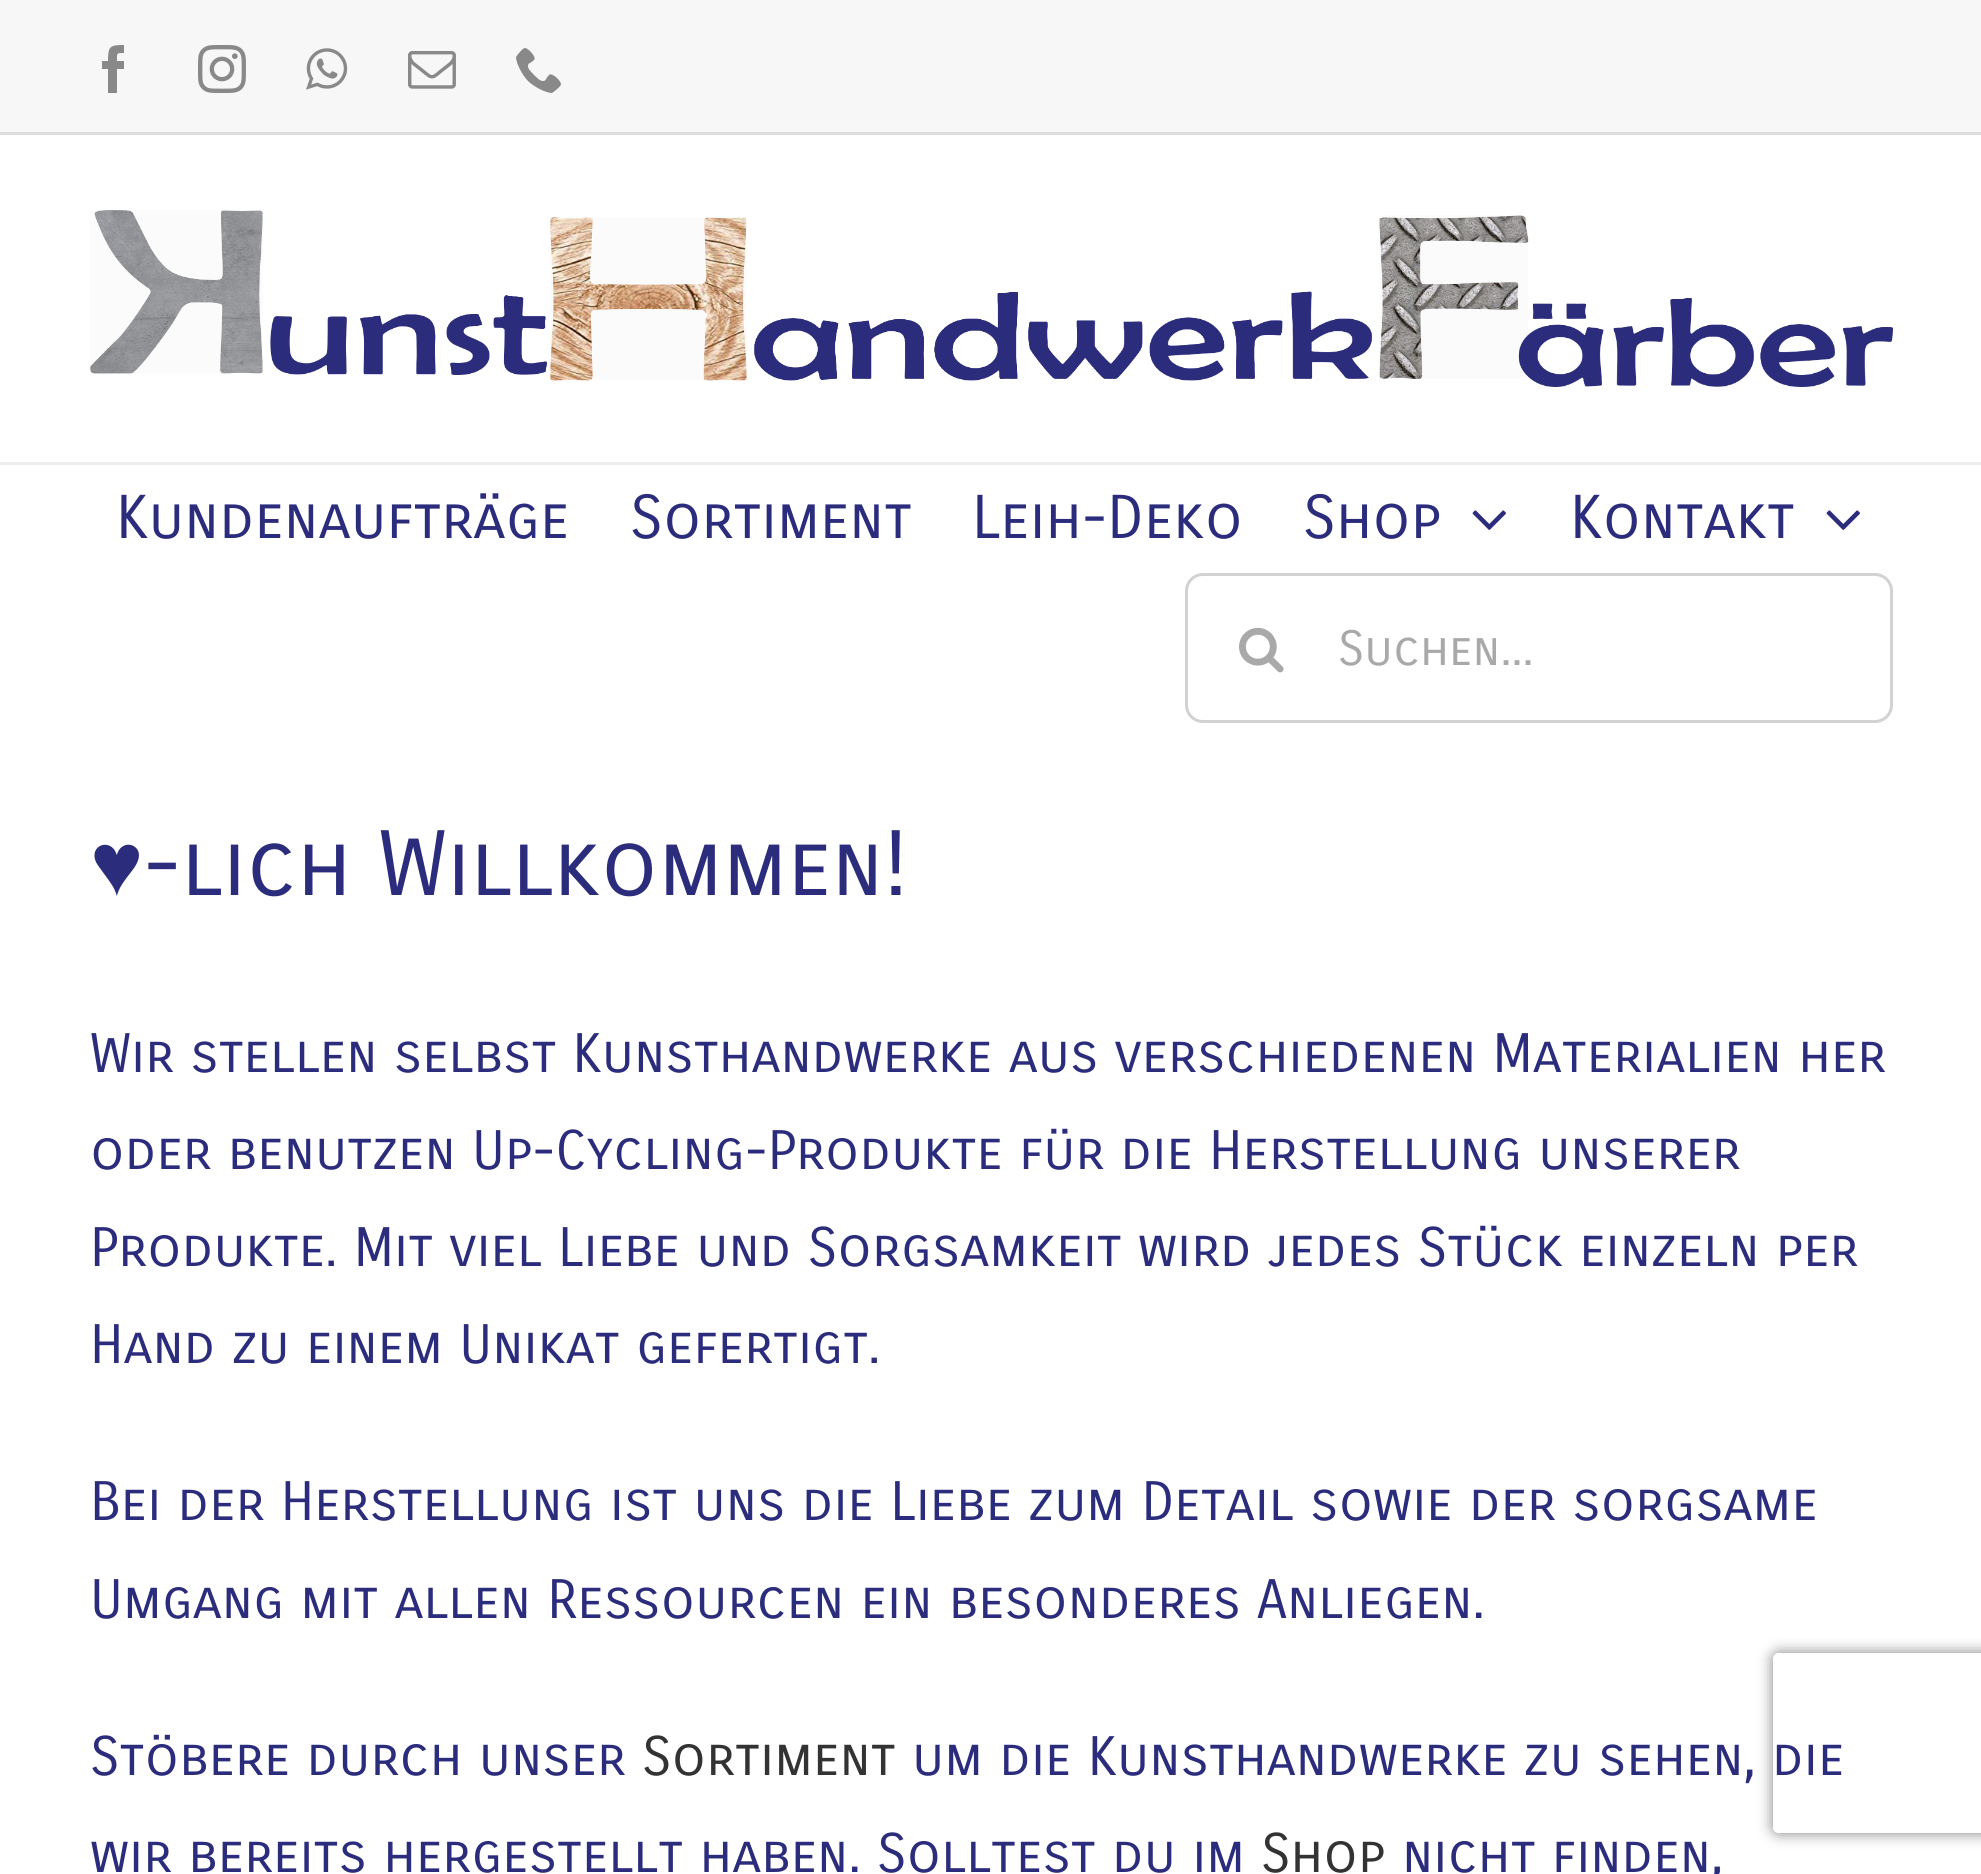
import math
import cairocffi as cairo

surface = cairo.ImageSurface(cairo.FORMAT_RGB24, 1981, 1874)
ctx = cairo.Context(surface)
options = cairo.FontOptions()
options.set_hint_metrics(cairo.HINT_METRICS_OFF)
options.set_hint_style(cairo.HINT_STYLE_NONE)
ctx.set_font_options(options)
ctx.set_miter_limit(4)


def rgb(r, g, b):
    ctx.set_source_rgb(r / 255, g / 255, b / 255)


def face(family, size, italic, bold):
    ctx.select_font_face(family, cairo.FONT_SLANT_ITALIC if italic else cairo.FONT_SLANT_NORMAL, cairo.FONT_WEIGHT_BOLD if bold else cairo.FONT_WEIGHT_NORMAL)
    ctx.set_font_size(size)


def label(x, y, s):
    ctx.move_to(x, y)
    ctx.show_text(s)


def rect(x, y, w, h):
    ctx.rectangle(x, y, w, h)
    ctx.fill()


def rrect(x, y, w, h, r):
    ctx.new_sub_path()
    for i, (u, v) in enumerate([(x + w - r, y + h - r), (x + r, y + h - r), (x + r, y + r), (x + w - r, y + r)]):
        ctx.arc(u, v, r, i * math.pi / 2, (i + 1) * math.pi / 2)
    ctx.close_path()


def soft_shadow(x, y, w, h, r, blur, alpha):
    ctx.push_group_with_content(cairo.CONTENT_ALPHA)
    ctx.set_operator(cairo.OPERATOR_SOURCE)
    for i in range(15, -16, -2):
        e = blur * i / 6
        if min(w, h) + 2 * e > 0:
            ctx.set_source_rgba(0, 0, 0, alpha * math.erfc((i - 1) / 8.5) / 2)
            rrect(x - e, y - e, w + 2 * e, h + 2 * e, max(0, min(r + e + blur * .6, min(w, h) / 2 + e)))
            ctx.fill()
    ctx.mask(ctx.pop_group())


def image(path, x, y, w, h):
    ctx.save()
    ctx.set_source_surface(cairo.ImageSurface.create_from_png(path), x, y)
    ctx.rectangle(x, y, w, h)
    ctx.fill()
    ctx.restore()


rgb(255, 255, 255)
ctx.paint()
rgb(247, 247, 247)
rect(0, 0, 1981, 132)
rgb(221, 221, 221)
rect(0, 132, 1981, 3)
rgb(137, 137, 137)
ctx.new_path()
ctx.move_to(117, 93)
ctx.line_to(108, 93)
ctx.line_to(108, 69)
ctx.line_to(102, 69)
ctx.line_to(102, 61)
ctx.line_to(108, 61)
ctx.curve_to(108, 46, 110, 45, 124, 45)
ctx.line_to(124, 53)
ctx.curve_to(116, 53, 117, 53, 117, 61)
ctx.line_to(124, 61)
ctx.line_to(124, 69)
ctx.line_to(117, 69)
ctx.close_path()
ctx.fill()
image('image0.png', 198, 45, 48, 48)
image('image1.png', 306, 48, 42, 42)
image('image2.png', 408, 51, 48, 38)
image('image3.png', 516, 48, 45, 45)
rgb(237, 237, 237)
rect(0, 462, 1981, 3)
image('image4.png', 90, 210, 1803, 177)
face('Carrois Gothic SC', 60, 0, 0)
rgb(43, 44, 124)
label(116, 538, 'Kundenaufträge')
label(630, 538, 'Sortiment')
label(972, 538, 'Leih-Deko')
label(1303, 538, 'Shop')
image('image5.png', 1472, 510, 34, 20)
label(1570, 538, 'Kontakt')
image('image5.png', 1826, 510, 34, 20)
rrect(1186.5, 574.5, 705, 147, 16.5)
rgb(210, 210, 210)
ctx.set_line_width(3)
ctx.stroke()
image('image6.png', 1239, 627, 45, 46)
face('Carrois Gothic SC', 48, 0, 0)
rgb(170, 169, 169)
label(1338, 665, 'Suchen...')
face('Liberation Serif', 90, 0, 0)
rgb(43, 44, 124)
label(90, 895, '♥')
face('Carrois Gothic SC', 90, 0, 0)
label(143, 895, '-lich Willkommen!')
face('Carrois Gothic SC', 54, 0, 0)
label(90, 1072, 'Wir stellen selbst Kunsthandwerke aus verschiedenen Materialien her')
label(90, 1169, 'oder benutzen Up-Cycling-Produkte für die Herstellung unserer')
label(90, 1266, 'Produkte. Mit viel Liebe und Sorgsamkeit wird jedes Stück einzeln per')
label(90, 1363, 'Hand zu einem Unikat gefertigt.')
label(90, 1520, 'Bei der Herstellung ist uns die Liebe zum Detail sowie der sorgsame')
label(90, 1618, 'Umgang mit allen Ressourcen ein besonderes Anliegen.')
label(90, 1775, 'Stöbere durch unser')
rgb(51, 51, 51)
label(642, 1775, 'Sortiment')
ctx.save()
ctx.set_fill_rule(cairo.FILL_RULE_EVEN_ODD)
ctx.new_path()
ctx.move_to(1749, 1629)
ctx.line_to(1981, 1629)
ctx.line_to(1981, 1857)
ctx.line_to(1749, 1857)
ctx.close_path()
ctx.move_to(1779, 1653)
ctx.line_to(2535, 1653)
ctx.curve_to(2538.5, 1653, 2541, 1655.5, 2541, 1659)
ctx.line_to(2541, 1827)
ctx.curve_to(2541, 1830.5, 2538.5, 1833, 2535, 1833)
ctx.line_to(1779, 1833)
ctx.curve_to(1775.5, 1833, 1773, 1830.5, 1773, 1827)
ctx.line_to(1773, 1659)
ctx.curve_to(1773, 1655.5, 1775.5, 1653, 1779, 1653)
ctx.close_path()
ctx.clip()
rgb(128, 128, 128)
soft_shadow(1773, 1653, 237, 180, 6, 7.5, 1)
ctx.restore()
rgb(43, 44, 124)
label(912, 1775, 'um die Kunsthandwerke zu sehen, die')
label(90, 1872, 'wir bereits hergestellt haben. Solltest du im')
rgb(51, 51, 51)
label(1261, 1872, 'Shop')
rgb(43, 44, 124)
label(1402, 1872, 'nicht finden,')
surface.write_to_png('render.png')
